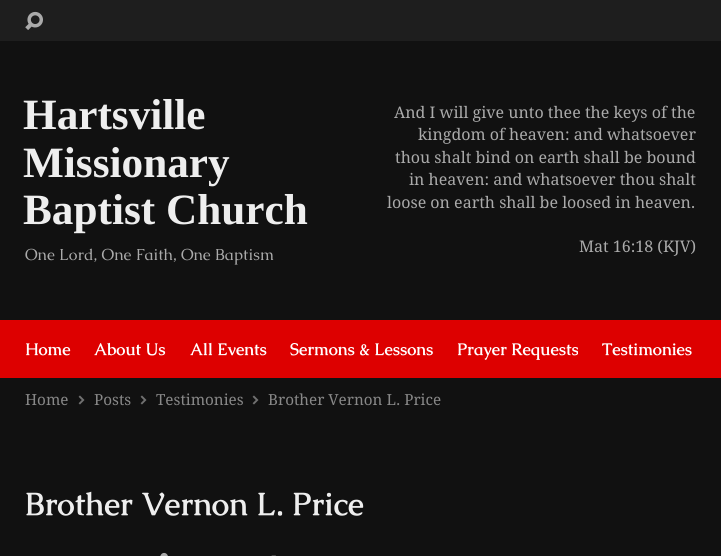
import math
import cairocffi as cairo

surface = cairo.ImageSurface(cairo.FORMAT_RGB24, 721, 556)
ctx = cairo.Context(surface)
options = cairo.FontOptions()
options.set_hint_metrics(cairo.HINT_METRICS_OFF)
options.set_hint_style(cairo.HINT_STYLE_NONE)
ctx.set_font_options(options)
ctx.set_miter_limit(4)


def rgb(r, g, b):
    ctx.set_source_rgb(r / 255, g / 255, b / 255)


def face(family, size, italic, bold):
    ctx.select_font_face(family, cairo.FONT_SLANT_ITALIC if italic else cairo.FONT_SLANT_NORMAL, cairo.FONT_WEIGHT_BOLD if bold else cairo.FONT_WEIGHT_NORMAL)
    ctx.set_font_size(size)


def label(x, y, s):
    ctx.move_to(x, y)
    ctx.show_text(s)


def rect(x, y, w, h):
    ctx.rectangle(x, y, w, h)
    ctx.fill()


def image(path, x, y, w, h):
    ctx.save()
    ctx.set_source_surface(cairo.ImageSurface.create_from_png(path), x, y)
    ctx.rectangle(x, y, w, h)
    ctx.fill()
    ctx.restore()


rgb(17, 17, 17)
ctx.paint()
rgb(30, 30, 30)
rect(0, 0, 721, 41)
image('image0.png', 25, 11, 18, 19)
face('Tinos', 43.25, 0, 1)
rgb(238, 238, 238)
label(23, 129, 'Hartsville')
label(23, 177, 'Missionary')
label(23, 224, 'Baptist Church')
face('Caudex', 16, 0, 0)
rgb(170, 170, 170)
label(25, 260, 'One Lord, One Faith, One Baptism')
face('Droid Serif', 16, 0, 0)
label(394, 118, 'And I will give unto thee the keys of the')
label(418, 140, 'kingdom of heaven: and whatsoever')
label(395, 163, 'thou shalt bind on earth shall be bound')
label(409, 185, 'in heaven: and whatsoever thou shalt')
label(387, 208, 'loose on earth shall be loosed in heaven.')
label(579, 252, 'Mat 16:18 (KJV)')
rgb(221, 0, 0)
rect(0, 320, 721, 58)
face('Caudex', 16.75, 0, 1)
rgb(255, 255, 255)
label(25, 355, 'Home')
label(94, 355, 'About Us')
label(190, 355, 'All Events')
label(290, 355, 'Sermons & Lessons')
label(457, 355, 'Prayer Requests')
label(602, 355, 'Testimonies')
face('Droid Serif', 15.25, 0, 0)
rgb(136, 136, 136)
label(25, 405, 'Home')
image('image1.png', 78, 395, 7, 10)
label(94, 405, 'Posts')
image('image1.png', 140, 395, 7, 10)
label(156, 405, 'Testimonies')
image('image1.png', 252, 395, 7, 10)
label(268, 405, 'Brother Vernon L. Price')
face('Caudex', 32, 0, 1)
rgb(238, 238, 238)
label(25, 515, 'Brother Vernon L. Price')
image('image2.png', 160, 552, 8, 4)
image('image3.png', 271, 555, 5, 1)
surface.write_to_png('render.png')
